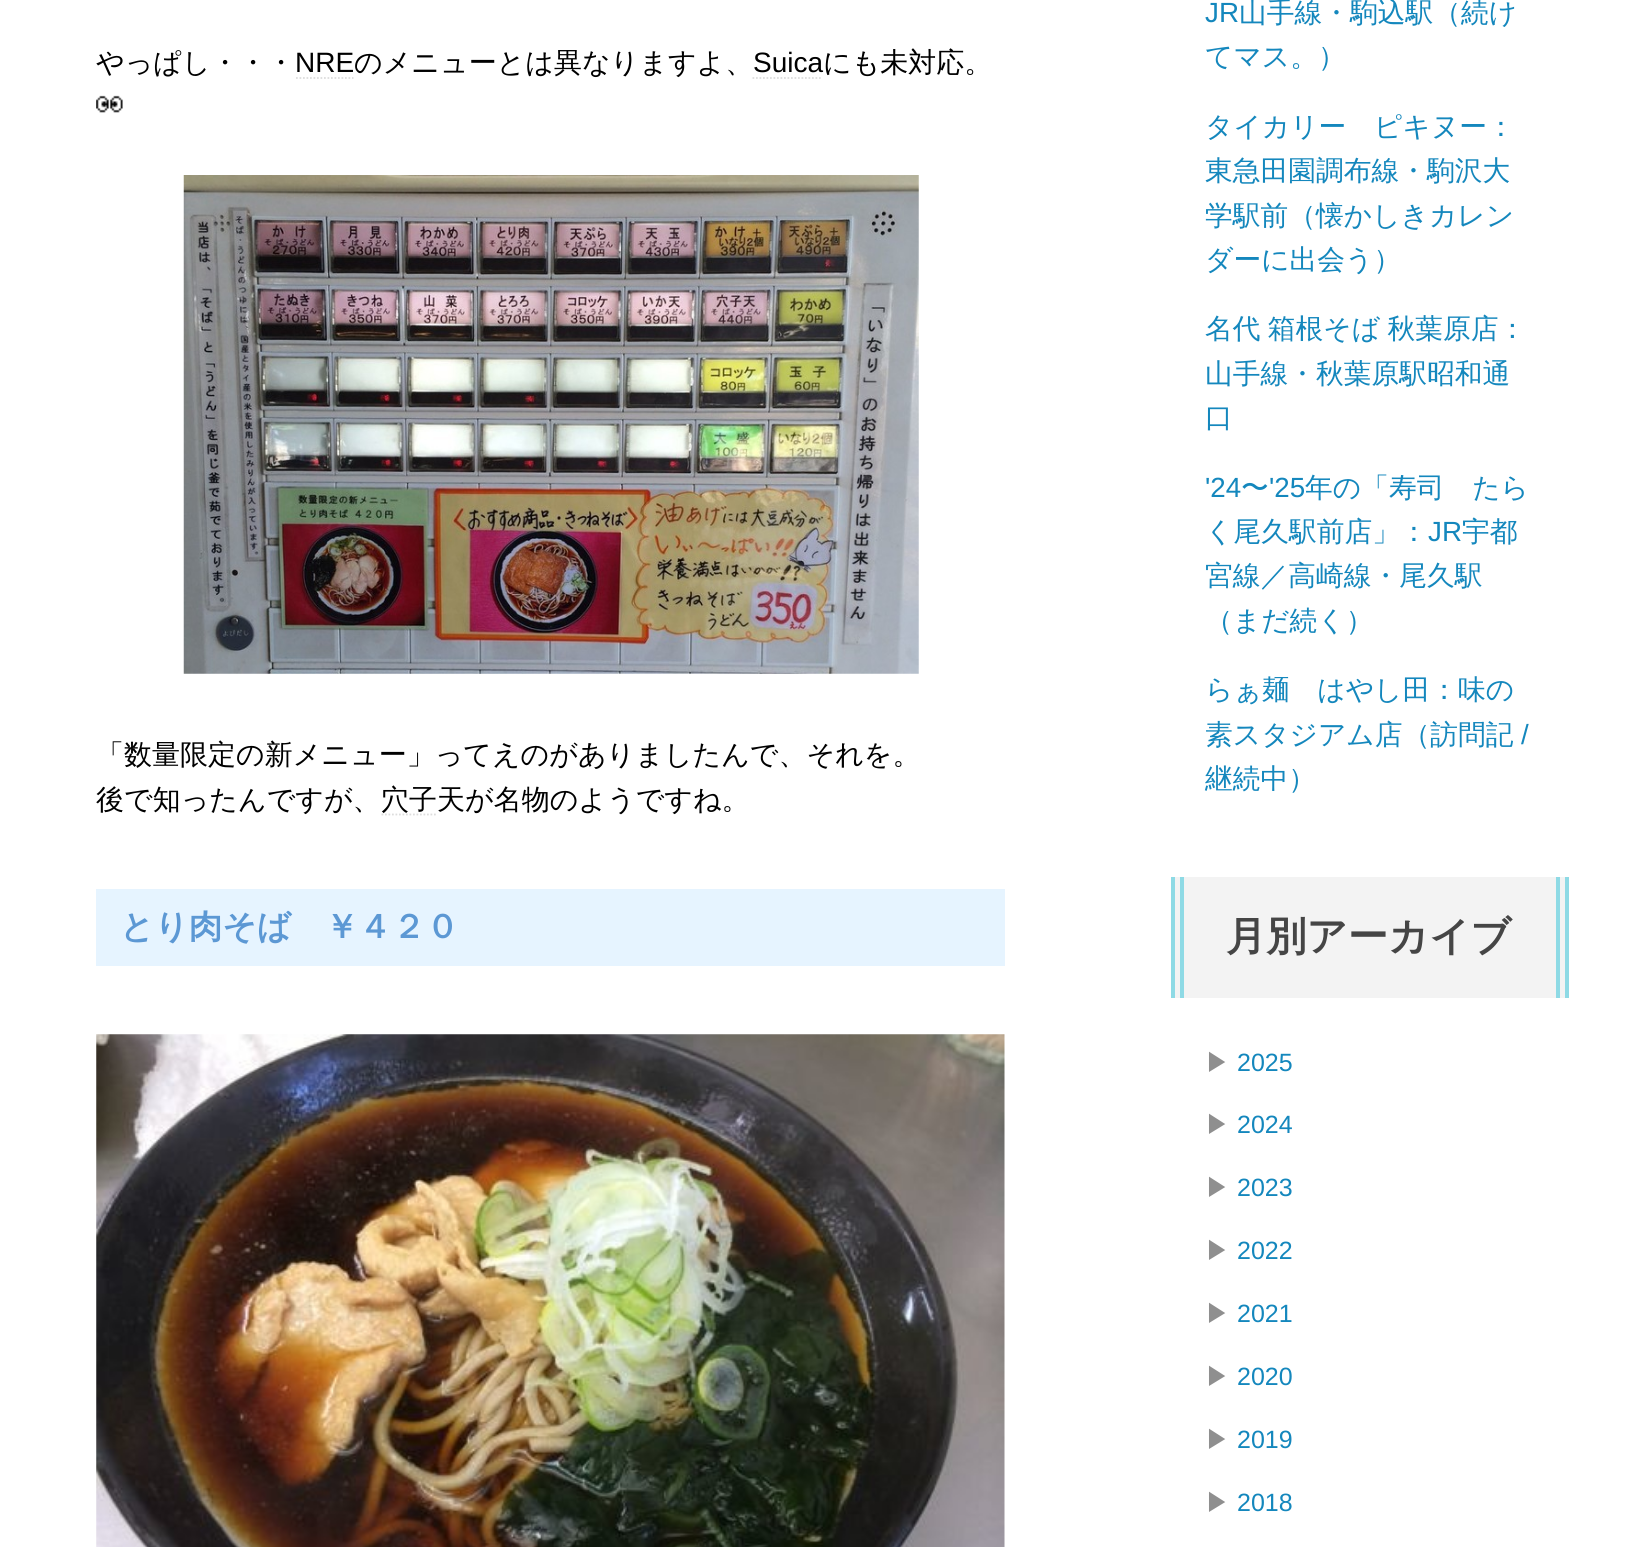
import math
import cairocffi as cairo

surface = cairo.ImageSurface(cairo.FORMAT_RGB24, 1646, 1547)
ctx = cairo.Context(surface)
options = cairo.FontOptions()
options.set_hint_metrics(cairo.HINT_METRICS_OFF)
options.set_hint_style(cairo.HINT_STYLE_NONE)
ctx.set_font_options(options)
ctx.set_miter_limit(4)


def rgb(r, g, b):
    ctx.set_source_rgb(r / 255, g / 255, b / 255)


def face(family, size, italic, bold):
    ctx.select_font_face(family, cairo.FONT_SLANT_ITALIC if italic else cairo.FONT_SLANT_NORMAL, cairo.FONT_WEIGHT_BOLD if bold else cairo.FONT_WEIGHT_NORMAL)
    ctx.set_font_size(size)


def label(x, y, s):
    ctx.move_to(x, y)
    ctx.show_text(s)


def tracked(x, y, s, letter, word):
    ctx.move_to(x, y)
    for ch in s:
        ctx.show_text(ch)
        ctx.rel_move_to(letter + word * (ch == ' '), 0)


def rect(x, y, w, h):
    ctx.rectangle(x, y, w, h)
    ctx.fill()


def image(path, x, y, w, h):
    ctx.save()
    ctx.set_source_surface(cairo.ImageSurface.create_from_png(path), x, y)
    ctx.rectangle(x, y, w, h)
    ctx.fill()
    ctx.restore()


rgb(255, 255, 255)
ctx.paint()
face('WenQuanYi Zen Hei Medium', 28, 0, 0)
rgb(0, 0, 0)
label(96, 72, 'やっぱし・・・')
face('Liberation Sans', 28, 0, 0)
label(295, 72, 'NRE')
face('WenQuanYi Zen Hei Medium', 28, 0, 0)
label(354, 72, 'のメニューとは異なりますよ、')
ctx.new_path()
ctx.move_to(296, 78)
ctx.line_to(353.5, 78)
rgb(221, 221, 221)
ctx.set_line_width(1.8)
ctx.set_dash([1.75, 1.75])
ctx.stroke()
face('Liberation Sans', 28, 0, 0)
rgb(0, 0, 0)
label(753, 72, 'Suica')
ctx.new_path()
ctx.move_to(752.5, 78)
ctx.line_to(822.5, 78)
rgb(221, 221, 221)
ctx.stroke()
face('WenQuanYi Zen Hei Medium', 28, 0, 0)
rgb(0, 0, 0)
label(823, 72, 'にも未対応。')
image('image0.png', 96, 95, 27, 18)
image('image1.png', 183, 175, 736, 499)
label(96, 764, '「数量限定の新メニュー」ってえのがありましたんで、それを。')
label(96, 809, '後で知ったんですが、')
ctx.new_path()
ctx.move_to(381.5, 814.5)
ctx.line_to(437.5, 814.5)
rgb(221, 221, 221)
ctx.stroke()
rgb(0, 0, 0)
label(381, 809, '穴子天が名物のようですね。')
rgb(230, 244, 255)
rect(96, 889, 909, 77)
face('WenQuanYi Zen Hei', 33.6, 0, 1)
rgb(92, 152, 212)
label(120, 938, 'とり肉そば　￥４２０')
image('image2.png', 96, 1034, 909, 513)
face('Liberation Sans', 27.75, 0, 0)
rgb(20, 135, 189)
label(1205, 22, 'JR')
face('WenQuanYi Zen Hei Medium', 27.75, 0, 0)
label(1239, 22, '山手線・駒込駅（続け')
label(1205, 66, 'てマス。）')
label(1205, 136, 'タイカリー　ピキヌー：')
label(1205, 180, '東急田園調布線・駒沢大')
label(1205, 225, '学駅前（懐かしきカレン')
label(1205, 269, 'ダーに出会う）')
tracked(1205, 338, '名代 箱根そば 秋葉原店：', 0, -1)
label(1205, 383, '山手線・秋葉原駅昭和通')
label(1205, 427, '口')
face('Liberation Sans', 27.75, 0, 0)
label(1205, 497, '\'24')
face('WenQuanYi Zen Hei Medium', 27.75, 0, 0)
label(1241, 497, '〜')
face('Liberation Sans', 27.75, 0, 0)
label(1269, 497, '\'25')
face('WenQuanYi Zen Hei Medium', 27.75, 0, 0)
label(1305, 497, '年の「寿司　たら')
label(1205, 541, 'く尾久駅前店」：')
face('Liberation Sans', 27.75, 0, 0)
label(1428, 541, 'JR')
face('WenQuanYi Zen Hei Medium', 27.75, 0, 0)
label(1462, 541, '宇都')
label(1205, 585, '宮線／高崎線・尾久駅')
label(1205, 630, '（まだ続く）')
label(1205, 699, 'らぁ麺　はやし田：味の')
label(1205, 744, '素スタジアム店（訪問記')
face('Liberation Sans', 27.75, 0, 0)
label(1521, 744, '/')
face('WenQuanYi Zen Hei Medium', 27.75, 0, 0)
label(1205, 788, '継続中）')
rgb(243, 243, 243)
rect(1175, 877, 390, 121)
rgb(142, 218, 229)
rect(1556, 877, 4, 121)
rect(1565, 877, 4, 121)
rect(1171, 877, 4, 121)
rect(1180, 877, 4, 121)
face('WenQuanYi Zen Hei', 40.25, 0, 1)
rgb(69, 69, 69)
label(1226, 950, '月別アーカイブ')
face('WenQuanYi Zen Hei Medium', 25, 0, 0)
rgb(143, 143, 143)
label(1205, 1071, '▶')
face('Liberation Sans', 25, 0, 0)
rgb(20, 135, 189)
label(1237, 1071, '2025')
face('WenQuanYi Zen Hei Medium', 25, 0, 0)
rgb(143, 143, 143)
label(1205, 1133, '▶')
face('Liberation Sans', 25, 0, 0)
rgb(20, 135, 189)
label(1237, 1133, '2024')
face('WenQuanYi Zen Hei Medium', 25, 0, 0)
rgb(143, 143, 143)
label(1205, 1196, '▶')
face('Liberation Sans', 25, 0, 0)
rgb(20, 135, 189)
label(1237, 1196, '2023')
face('WenQuanYi Zen Hei Medium', 25, 0, 0)
rgb(143, 143, 143)
label(1205, 1259, '▶')
face('Liberation Sans', 25, 0, 0)
rgb(20, 135, 189)
label(1237, 1259, '2022')
face('WenQuanYi Zen Hei Medium', 25, 0, 0)
rgb(143, 143, 143)
label(1205, 1322, '▶')
face('Liberation Sans', 25, 0, 0)
rgb(20, 135, 189)
label(1237, 1322, '2021')
face('WenQuanYi Zen Hei Medium', 25, 0, 0)
rgb(143, 143, 143)
label(1205, 1385, '▶')
face('Liberation Sans', 25, 0, 0)
rgb(20, 135, 189)
label(1237, 1385, '2020')
face('WenQuanYi Zen Hei Medium', 25, 0, 0)
rgb(143, 143, 143)
label(1205, 1448, '▶')
face('Liberation Sans', 25, 0, 0)
rgb(20, 135, 189)
label(1237, 1448, '2019')
face('WenQuanYi Zen Hei Medium', 25, 0, 0)
rgb(143, 143, 143)
label(1205, 1511, '▶')
face('Liberation Sans', 25, 0, 0)
rgb(20, 135, 189)
label(1237, 1511, '2018')
surface.write_to_png('render.png')
